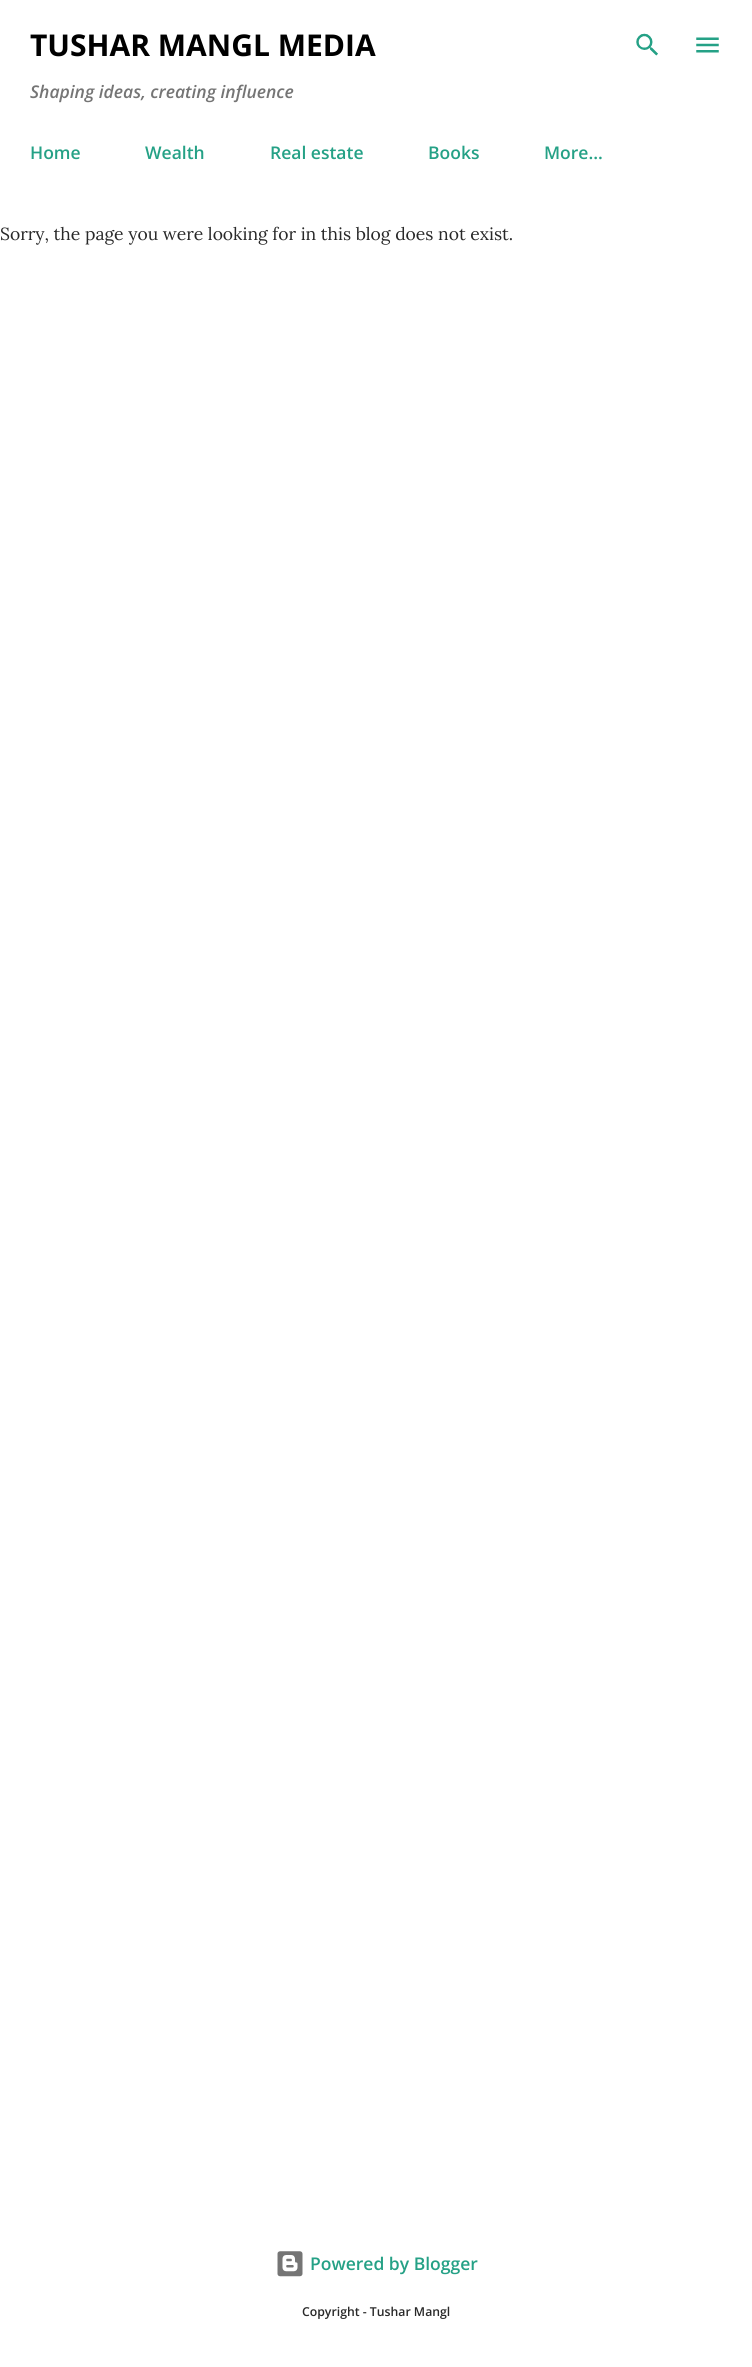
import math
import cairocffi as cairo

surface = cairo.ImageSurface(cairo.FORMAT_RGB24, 752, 2367)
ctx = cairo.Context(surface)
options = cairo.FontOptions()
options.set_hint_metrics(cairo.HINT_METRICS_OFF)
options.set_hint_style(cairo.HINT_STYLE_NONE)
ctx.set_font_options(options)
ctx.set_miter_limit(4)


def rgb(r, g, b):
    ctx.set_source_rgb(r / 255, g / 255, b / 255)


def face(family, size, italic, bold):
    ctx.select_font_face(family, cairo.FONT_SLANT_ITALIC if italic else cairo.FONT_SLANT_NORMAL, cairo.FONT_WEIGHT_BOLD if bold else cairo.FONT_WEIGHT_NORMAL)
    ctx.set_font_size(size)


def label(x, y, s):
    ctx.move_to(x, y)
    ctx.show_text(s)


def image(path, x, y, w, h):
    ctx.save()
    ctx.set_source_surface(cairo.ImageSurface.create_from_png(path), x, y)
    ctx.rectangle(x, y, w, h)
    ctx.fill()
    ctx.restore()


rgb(255, 255, 255)
ctx.paint()
face('Open Sans', 30, 0, 1)
rgb(0, 0, 0)
label(30, 56, 'TUSHAR MANGL MEDIA')
face('Open Sans SemiBold', 17.5, 1, 0)
rgb(117, 117, 117)
label(30, 98, 'Shaping ideas, creating influence')
image('image0.png', 636, 33, 22, 23)
image('image1.png', 696, 37, 23, 16)
face('Open Sans SemiBold', 17.5, 0, 0)
rgb(37, 161, 134)
label(30, 159, 'Home')
label(145, 159, 'Wealth')
label(270, 159, 'Real estate')
label(428, 159, 'Books')
label(544, 159, 'More…')
face('Lora', 17.5, 0, 0)
rgb(41, 41, 41)
label(0, 240, 'Sorry, the page you were looking for in this blog does not exist.')
image('image2.png', 277, 2251, 26, 26)
face('Open Sans SemiBold', 17.5, 0, 0)
rgb(37, 161, 134)
label(310, 2270, 'Powered by Blogger')
face('Open Sans SemiBold', 12.25, 0, 0)
rgb(41, 41, 41)
label(302, 2316, 'Copyright - Tushar Mangl')
surface.write_to_png('render.png')
